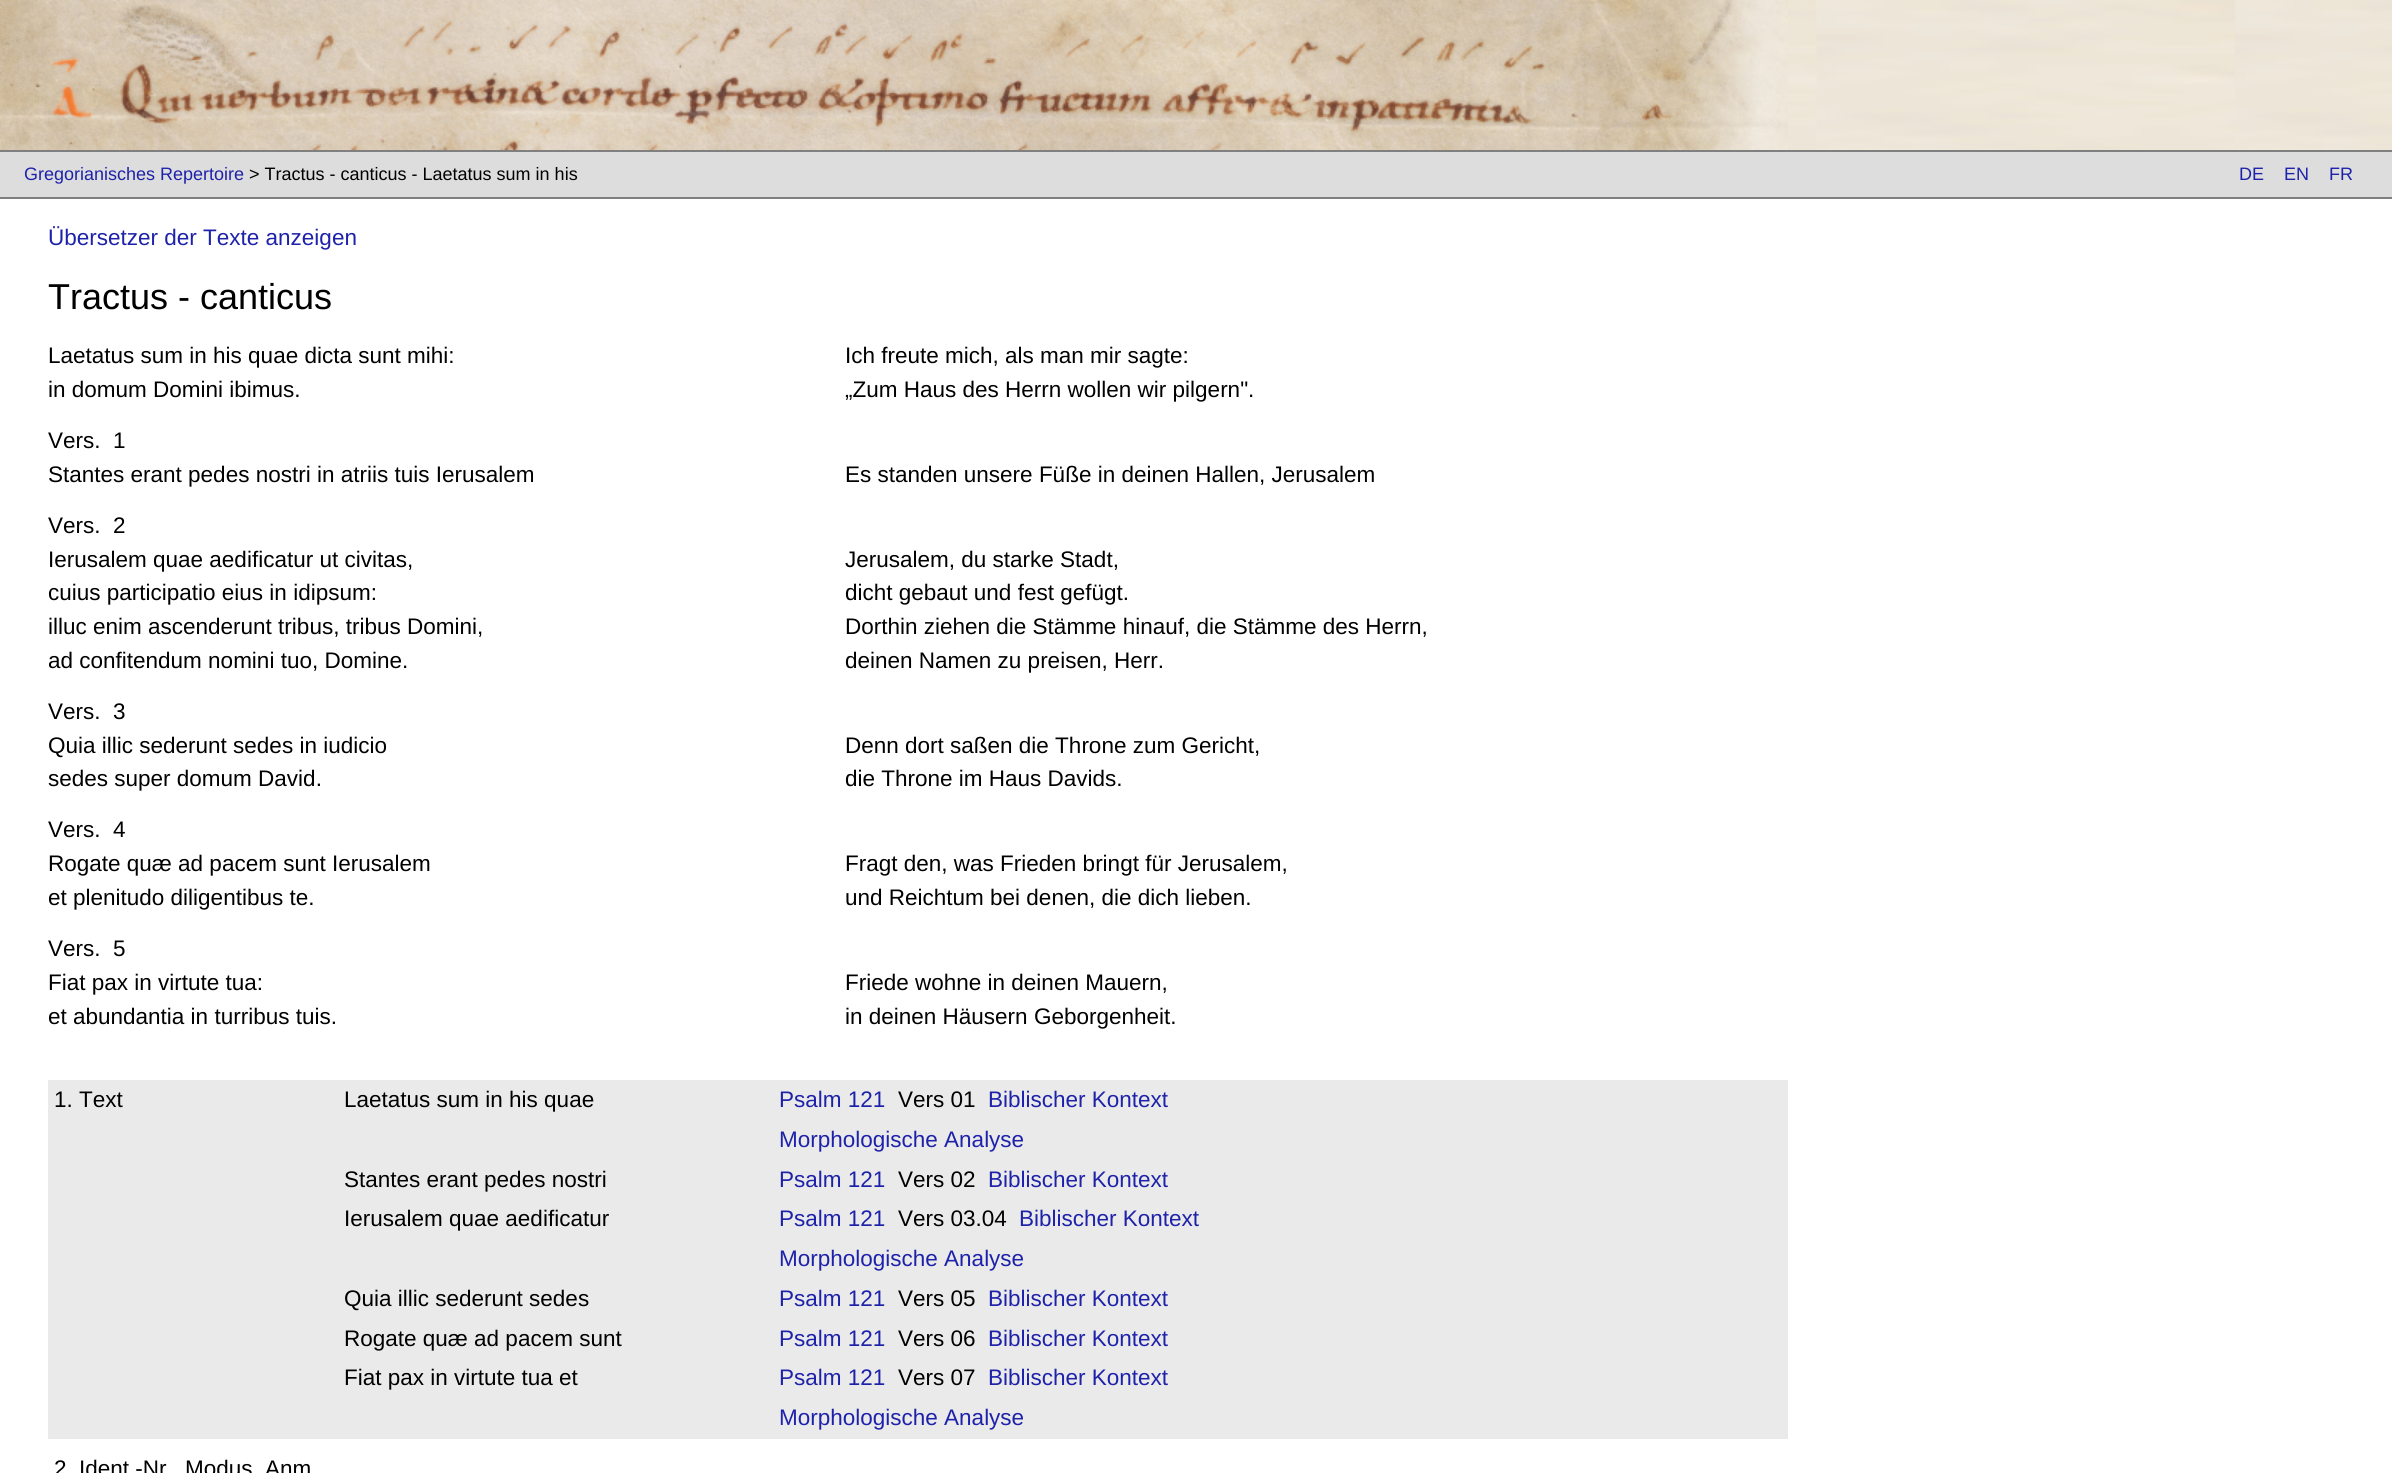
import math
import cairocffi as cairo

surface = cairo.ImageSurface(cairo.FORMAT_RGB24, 2392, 1473)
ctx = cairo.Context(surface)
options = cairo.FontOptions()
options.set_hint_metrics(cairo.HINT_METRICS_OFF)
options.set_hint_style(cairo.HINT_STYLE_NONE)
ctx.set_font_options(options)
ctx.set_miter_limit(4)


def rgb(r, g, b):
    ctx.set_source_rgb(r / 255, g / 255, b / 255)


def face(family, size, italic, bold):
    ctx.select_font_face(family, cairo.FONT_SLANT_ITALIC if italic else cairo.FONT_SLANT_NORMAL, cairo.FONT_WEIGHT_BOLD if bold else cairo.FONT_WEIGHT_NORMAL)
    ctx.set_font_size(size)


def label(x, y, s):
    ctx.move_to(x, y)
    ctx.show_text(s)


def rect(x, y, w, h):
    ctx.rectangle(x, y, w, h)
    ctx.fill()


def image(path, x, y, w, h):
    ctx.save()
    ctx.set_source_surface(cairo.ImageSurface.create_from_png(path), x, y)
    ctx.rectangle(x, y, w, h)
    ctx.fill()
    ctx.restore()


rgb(255, 255, 255)
ctx.paint()
image('image0.png', 1788, 0, 604, 150)
image('image1.png', 0, 0, 1788, 150)
rgb(221, 221, 221)
rect(0, 152, 2392, 45)
rgb(128, 128, 128)
rect(0, 150, 2392, 2)
rect(0, 197, 2392, 2)
face('Liberation Sans', 18, 0, 0)
rgb(30, 34, 170)
label(24, 180, 'Gregorianisches Repertoire')
rgb(0, 0, 0)
label(249, 180, '> Tractus - canticus - Laetatus sum in his')
rgb(30, 34, 170)
label(2239, 180, 'DE')
label(2284, 180, 'EN')
label(2329, 180, 'FR')
face('Liberation Sans', 22.5, 0, 0)
label(48, 245, 'Übersetzer der Texte anzeigen')
face('Liberation Sans', 36, 0, 0)
rgb(0, 0, 0)
label(48, 309, 'Tractus - canticus')
face('Liberation Sans', 22.5, 0, 0)
label(48, 363, 'Laetatus sum in his quae dicta sunt mihi:')
label(48, 397, 'in domum Domini ibimus.')
label(845, 363, 'Ich freute mich, als man mir sagte:')
label(845, 397, '„Zum Haus des Herrn wollen wir pilgern".')
label(48, 448, 'Vers.  1')
label(48, 482, 'Stantes erant pedes nostri in atriis tuis Ierusalem')
label(845, 482, 'Es standen unsere Füße in deinen Hallen, Jerusalem')
label(48, 533, 'Vers.  2')
label(48, 567, 'Ierusalem quae aedificatur ut civitas,')
label(48, 600, 'cuius participatio eius in idipsum:')
label(48, 634, 'illuc enim ascenderunt tribus, tribus Domini,')
label(48, 668, 'ad confitendum nomini tuo, Domine.')
label(845, 567, 'Jerusalem, du starke Stadt,')
label(845, 600, 'dicht gebaut und fest gefügt.')
label(845, 634, 'Dorthin ziehen die Stämme hinauf, die Stämme des Herrn,')
label(845, 668, 'deinen Namen zu preisen, Herr.')
label(48, 719, 'Vers.  3')
label(48, 753, 'Quia illic sederunt sedes in iudicio')
label(48, 786, 'sedes super domum David.')
label(845, 753, 'Denn dort saßen die Throne zum Gericht,')
label(845, 786, 'die Throne im Haus Davids.')
label(48, 837, 'Vers.  4')
label(48, 871, 'Rogate quæ ad pacem sunt Ierusalem')
label(48, 905, 'et plenitudo diligentibus te.')
label(845, 871, 'Fragt den, was Frieden bringt für Jerusalem,')
label(845, 905, 'und Reichtum bei denen, die dich lieben.')
label(48, 956, 'Vers.  5')
label(48, 990, 'Fiat pax in virtute tua:')
label(48, 1024, 'et abundantia in turribus tuis.')
label(845, 990, 'Friede wohne in deinen Mauern,')
label(845, 1024, 'in deinen Häusern Geborgenheit.')
rgb(234, 234, 234)
rect(48, 1080, 1740, 359)
rgb(0, 0, 0)
label(54, 1107, '1. Text')
label(344, 1107, 'Laetatus sum in his quae')
rgb(30, 34, 170)
label(779, 1107, 'Psalm 121')
rgb(0, 0, 0)
label(898, 1107, 'Vers 01')
rgb(30, 34, 170)
label(988, 1107, 'Biblischer Kontext')
label(779, 1147, 'Morphologische Analyse')
rgb(0, 0, 0)
label(344, 1187, 'Stantes erant pedes nostri')
rgb(30, 34, 170)
label(779, 1187, 'Psalm 121')
rgb(0, 0, 0)
label(898, 1187, 'Vers 02')
rgb(30, 34, 170)
label(988, 1187, 'Biblischer Kontext')
rgb(0, 0, 0)
label(344, 1226, 'Ierusalem quae aedificatur')
rgb(30, 34, 170)
label(779, 1226, 'Psalm 121')
rgb(0, 0, 0)
label(898, 1226, 'Vers 03.04')
rgb(30, 34, 170)
label(1019, 1226, 'Biblischer Kontext')
label(779, 1266, 'Morphologische Analyse')
rgb(0, 0, 0)
label(344, 1306, 'Quia illic sederunt sedes')
rgb(30, 34, 170)
label(779, 1306, 'Psalm 121')
rgb(0, 0, 0)
label(898, 1306, 'Vers 05')
rgb(30, 34, 170)
label(988, 1306, 'Biblischer Kontext')
rgb(0, 0, 0)
label(344, 1346, 'Rogate quæ ad pacem sunt')
rgb(30, 34, 170)
label(779, 1346, 'Psalm 121')
rgb(0, 0, 0)
label(898, 1346, 'Vers 06')
rgb(30, 34, 170)
label(988, 1346, 'Biblischer Kontext')
rgb(0, 0, 0)
label(344, 1385, 'Fiat pax in virtute tua et')
rgb(30, 34, 170)
label(779, 1385, 'Psalm 121')
rgb(0, 0, 0)
label(898, 1385, 'Vers 07')
rgb(30, 34, 170)
label(988, 1385, 'Biblischer Kontext')
label(779, 1425, 'Morphologische Analyse')
rgb(0, 0, 0)
label(54, 1476, '2. Ident.-Nr')
label(185, 1476, 'Modus, Anm')
surface.write_to_png('render.png')
